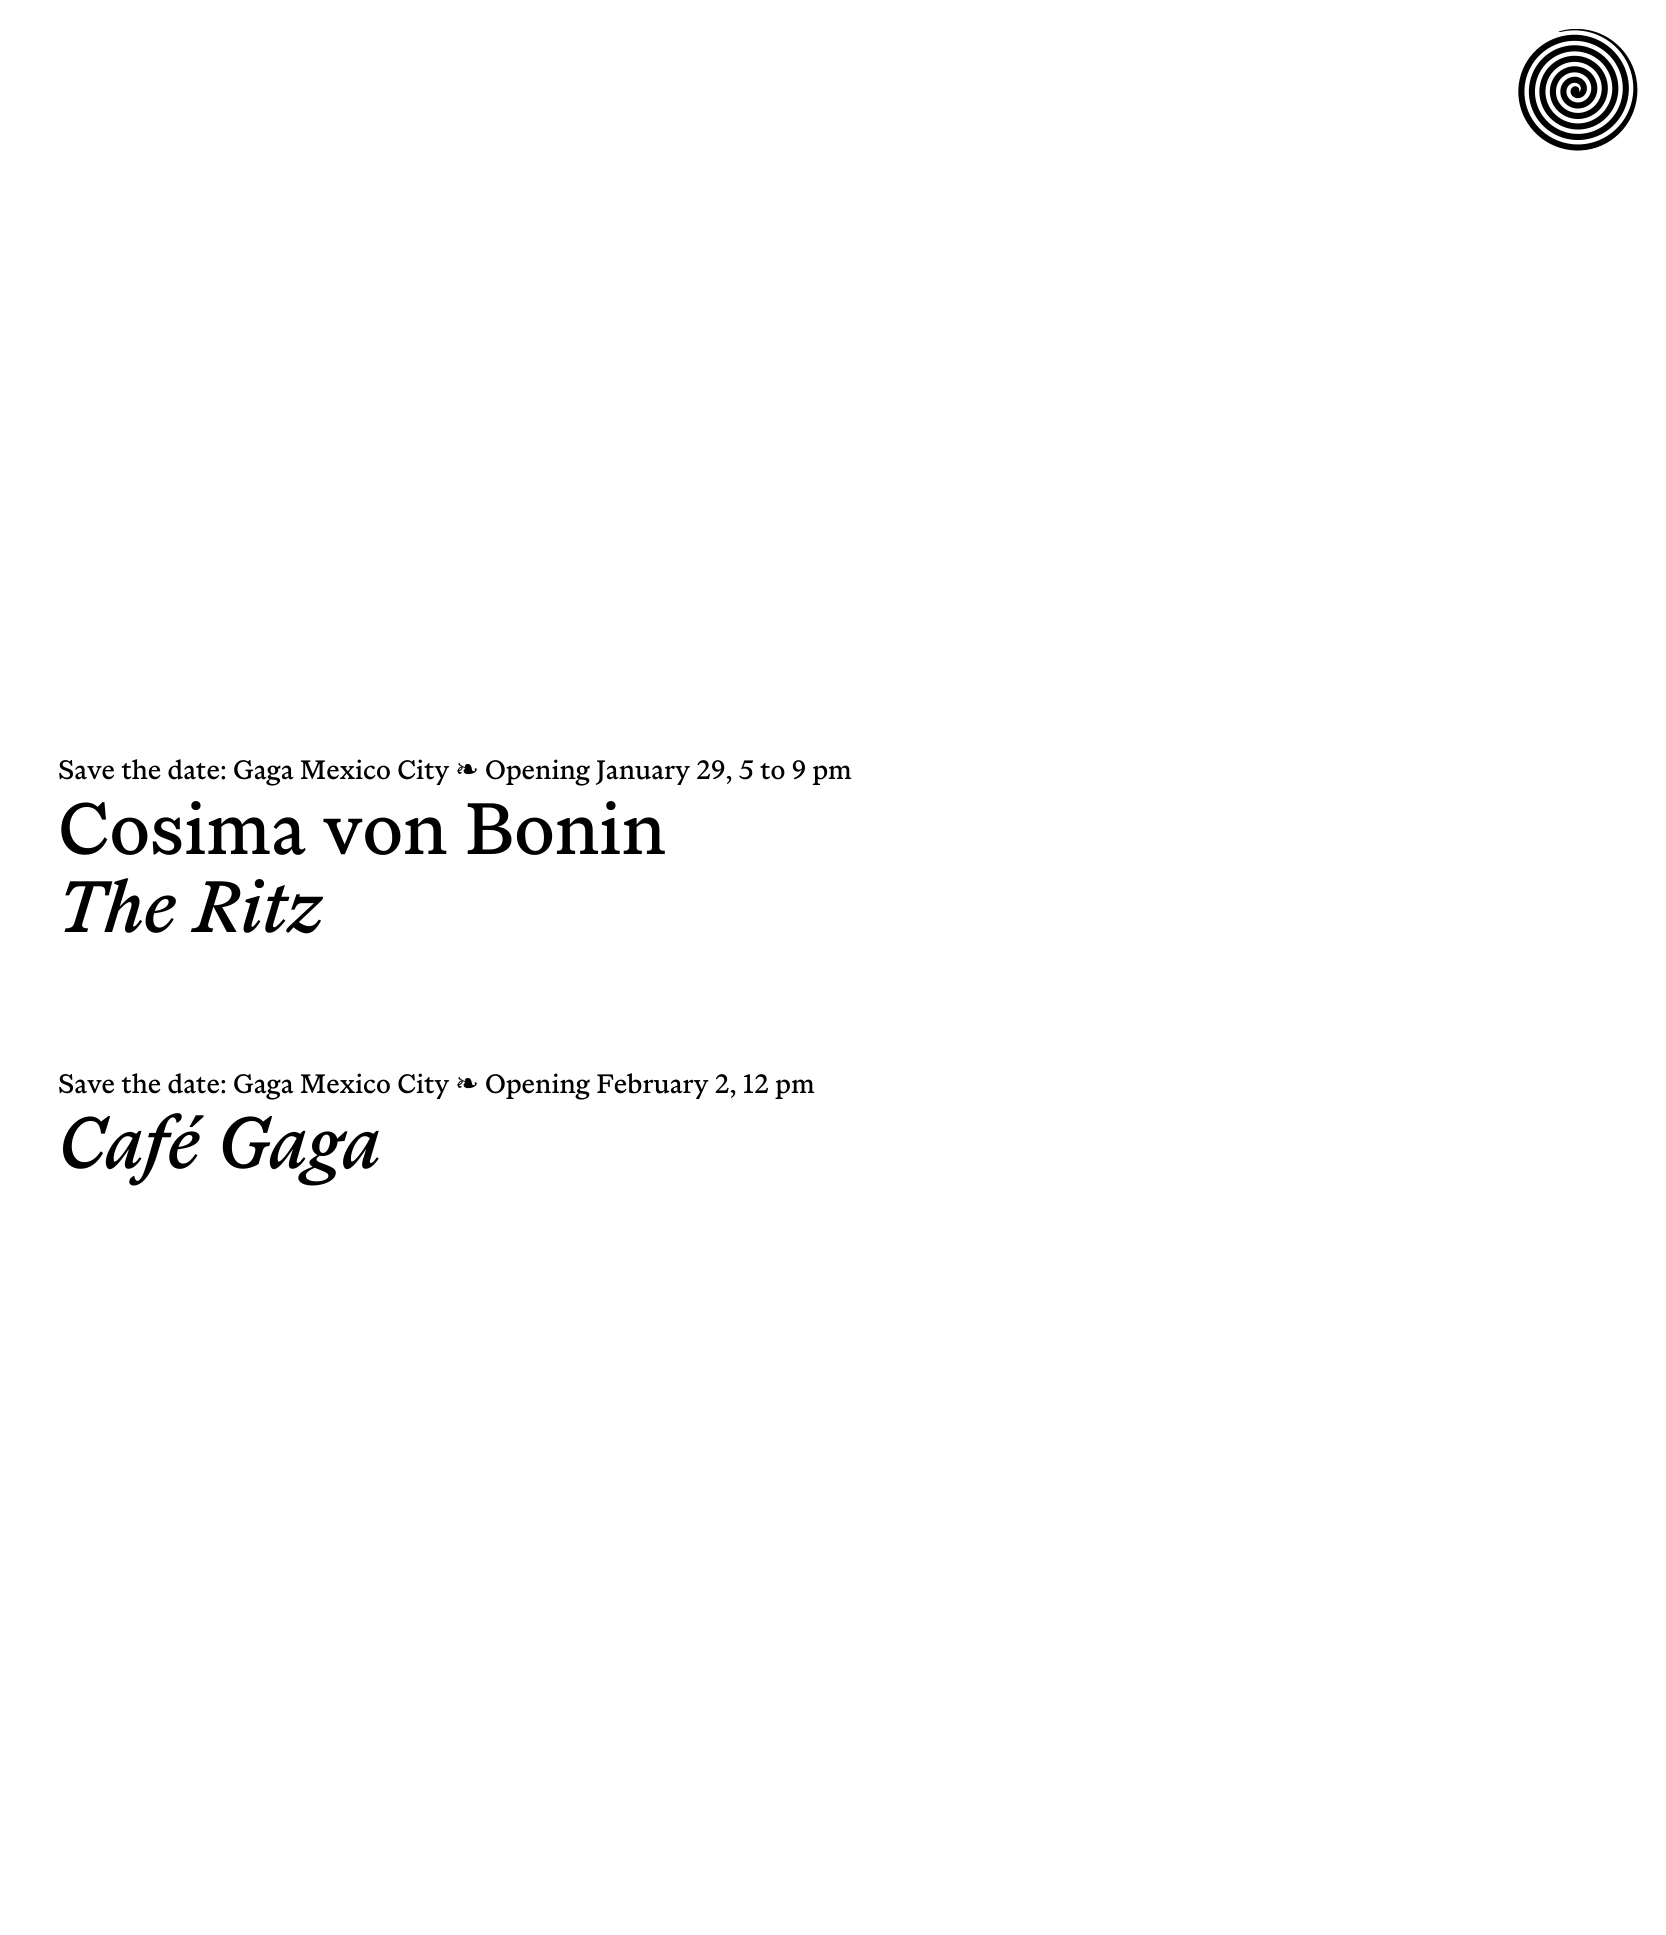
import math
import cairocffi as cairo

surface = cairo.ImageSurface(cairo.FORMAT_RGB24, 1666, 1935)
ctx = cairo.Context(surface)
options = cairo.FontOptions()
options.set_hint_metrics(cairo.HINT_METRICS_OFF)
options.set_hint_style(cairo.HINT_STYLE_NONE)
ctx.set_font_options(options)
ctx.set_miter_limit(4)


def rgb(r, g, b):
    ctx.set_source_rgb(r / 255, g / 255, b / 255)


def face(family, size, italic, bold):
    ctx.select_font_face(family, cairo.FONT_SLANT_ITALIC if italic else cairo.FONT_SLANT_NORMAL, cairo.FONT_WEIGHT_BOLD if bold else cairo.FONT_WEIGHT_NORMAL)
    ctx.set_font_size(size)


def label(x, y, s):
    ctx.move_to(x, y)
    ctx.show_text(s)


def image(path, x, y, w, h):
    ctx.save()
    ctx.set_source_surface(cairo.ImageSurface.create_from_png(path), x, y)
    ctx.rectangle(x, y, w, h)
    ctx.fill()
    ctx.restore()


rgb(255, 255, 255)
ctx.paint()
image('image0.png', 1518, 29, 120, 122)
face('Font', 28.6, 0, 0)
rgb(0, 0, 0)
label(58, 779, 'Save the date: Gaga Mexico City')
face('DejaVu Sans', 28.6, 0, 0)
label(455, 779, '❧')
face('Font', 28.6, 0, 0)
label(485, 779, 'Opening January 29, 5 to 9 pm')
face('Font', 78, 0, 0)
label(58, 854, 'Cosima von Bonin')
face('Font', 78, 1, 0)
label(58, 932, 'The Ritz')
face('Font', 28.6, 0, 0)
label(58, 1093, 'Save the date: Gaga Mexico City')
face('DejaVu Sans', 28.6, 0, 0)
label(455, 1093, '❧')
face('Font', 28.6, 0, 0)
label(485, 1093, 'Opening February 2, 12 pm')
face('Font', 78, 1, 0)
label(58, 1168, 'Café Gaga')
surface.write_to_png('render.png')
